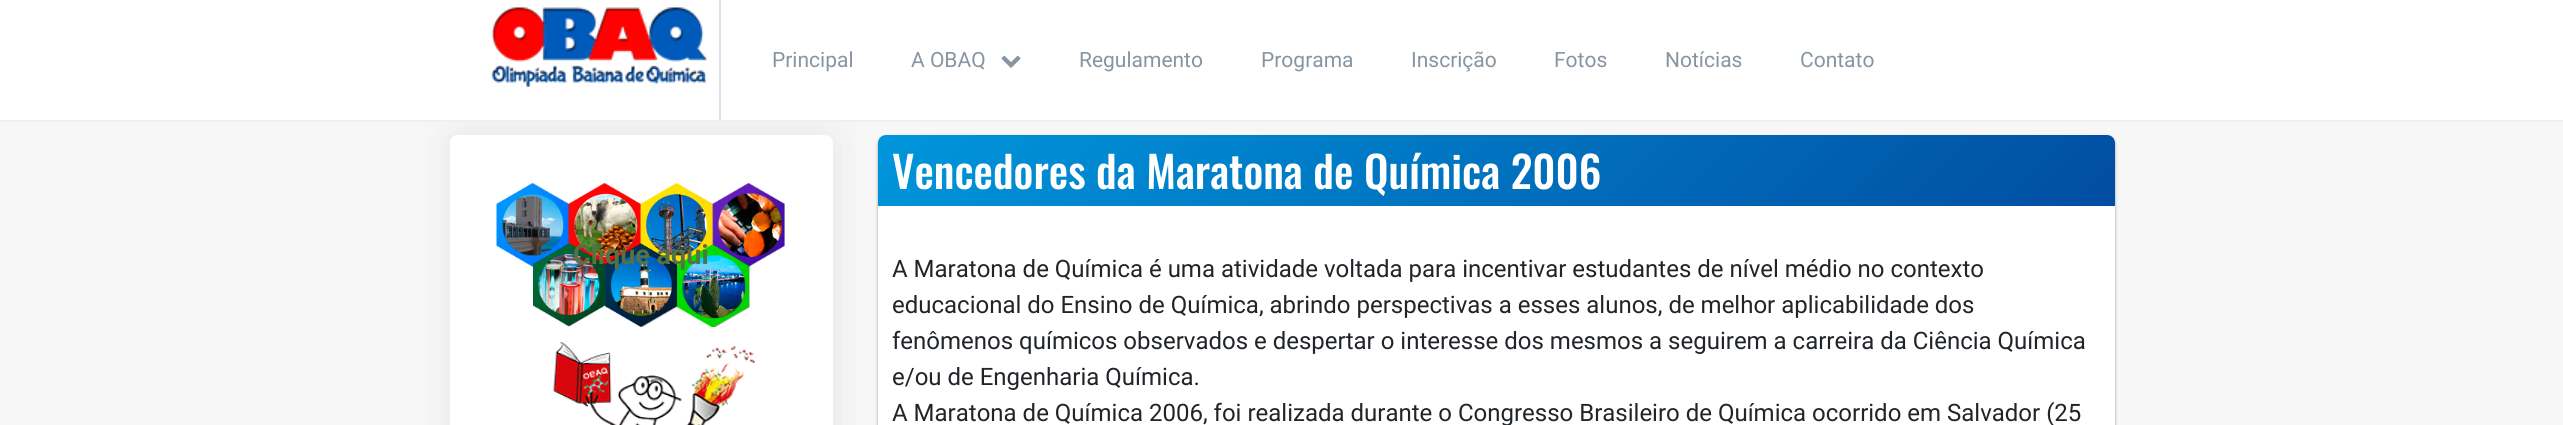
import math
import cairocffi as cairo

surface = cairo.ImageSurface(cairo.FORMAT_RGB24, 2563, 425)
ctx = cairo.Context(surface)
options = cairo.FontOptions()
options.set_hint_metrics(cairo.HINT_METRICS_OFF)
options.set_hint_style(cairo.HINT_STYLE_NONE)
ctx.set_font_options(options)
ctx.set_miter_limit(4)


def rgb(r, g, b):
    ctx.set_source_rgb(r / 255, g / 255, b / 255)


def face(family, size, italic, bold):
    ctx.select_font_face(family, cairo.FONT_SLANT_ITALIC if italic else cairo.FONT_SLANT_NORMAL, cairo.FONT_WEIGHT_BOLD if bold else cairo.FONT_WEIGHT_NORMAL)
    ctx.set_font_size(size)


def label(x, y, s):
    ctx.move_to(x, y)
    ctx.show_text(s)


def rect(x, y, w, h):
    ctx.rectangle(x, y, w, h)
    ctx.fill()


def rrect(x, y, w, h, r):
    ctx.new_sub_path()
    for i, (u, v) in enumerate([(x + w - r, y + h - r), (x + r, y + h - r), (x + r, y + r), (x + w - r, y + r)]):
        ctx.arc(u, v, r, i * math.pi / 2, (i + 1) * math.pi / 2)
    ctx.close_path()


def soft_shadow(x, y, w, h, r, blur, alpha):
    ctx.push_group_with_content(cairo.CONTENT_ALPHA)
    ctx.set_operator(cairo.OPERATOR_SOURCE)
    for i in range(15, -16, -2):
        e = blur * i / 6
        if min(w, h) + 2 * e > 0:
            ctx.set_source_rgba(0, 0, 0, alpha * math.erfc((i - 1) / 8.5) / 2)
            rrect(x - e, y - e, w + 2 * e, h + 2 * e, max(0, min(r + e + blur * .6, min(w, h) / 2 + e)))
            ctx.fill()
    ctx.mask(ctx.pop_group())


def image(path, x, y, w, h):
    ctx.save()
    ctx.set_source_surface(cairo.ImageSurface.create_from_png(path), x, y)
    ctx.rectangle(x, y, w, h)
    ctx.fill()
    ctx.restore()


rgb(247, 247, 247)
ctx.paint()
rgb(63, 66, 87)
soft_shadow(450, 135, 383, 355, 8, 19, 0.1)
rgb(255, 255, 255)
rect(0, 0, 2563, 120)
rgb(236, 239, 245)
rect(0, 120, 2563, 2)
rgb(222, 226, 230)
rect(719, 0, 2, 120)
image('image0.png', 491, 7, 216, 80)
face('Roboto', 21, 0, 0)
rgb(135, 149, 162)
label(772, 67, 'Principal')
label(911, 67, 'A OBAQ')
image('image1.png', 1001, 55, 20, 13)
label(1079, 67, 'Regulamento')
label(1261, 67, 'Programa')
label(1411, 67, 'Inscrição')
label(1554, 67, 'Fotos')
label(1665, 67, 'Notícias')
label(1800, 67, 'Contato')
rgb(255, 255, 255)
rrect(450, 135, 383, 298, 8)
ctx.fill()
image('image2.png', 496, 183, 289, 144)
face('Roboto', 27, 0, 1)
rgb(85, 113, 69)
label(573, 264, 'Clique aqui')
image('image3.png', 553, 342, 202, 83)
rgb(0, 0, 0)
soft_shadow(878, 137, 1237, 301, 8, 1.5, 0.24)
soft_shadow(878, 137, 1237, 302, 8, 2, 0.12)
rgb(255, 255, 255)
ctx.new_path()
ctx.move_to(886, 135)
ctx.line_to(2107, 135)
ctx.curve_to(2111.5, 135, 2115, 138.5, 2115, 143)
ctx.line_to(2115, 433)
ctx.line_to(878, 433)
ctx.line_to(878, 143)
ctx.curve_to(878, 138.5, 881.5, 135, 886, 135)
ctx.close_path()
ctx.fill()
gradient = cairo.LinearGradient(1823, 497, 1169, -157)
gradient.add_color_stop_rgba(0, 0.004, 0.302, 0.635, 1)
gradient.add_color_stop_rgba(1, 0, 0.588, 0.859, 1)
ctx.set_source(gradient)
ctx.new_path()
ctx.move_to(886, 135)
ctx.line_to(2107, 135)
ctx.curve_to(2111.5, 135, 2115, 138.5, 2115, 143)
ctx.line_to(2115, 206)
ctx.line_to(878, 206)
ctx.line_to(878, 143)
ctx.curve_to(878, 138.5, 881.5, 135, 886, 135)
ctx.close_path()
ctx.fill()
face('Oswald Medium', 43.5, 0, 0)
rgb(255, 255, 255)
label(892, 189, 'Vencedores da Maratona de Química 2006')
face('Roboto', 24, 0, 0)
rgb(33, 37, 41)
label(892, 277, 'A Maratona de Química é uma atividade voltada para incentivar estudantes de nível médio no contexto')
label(892, 313, 'educacional do Ensino de Química, abrindo perspectivas a esses alunos, de melhor aplicabilidade dos')
label(892, 349, 'fenômenos químicos observados e despertar o interesse dos mesmos a seguirem a carreira da Ciência Química')
label(892, 385, 'e/ou de Engenharia Química.')
label(892, 421, 'A Maratona de Química 2006, foi realizada durante o Congresso Brasileiro de Química ocorrido em Salvador (25')
surface.write_to_png('render.png')
